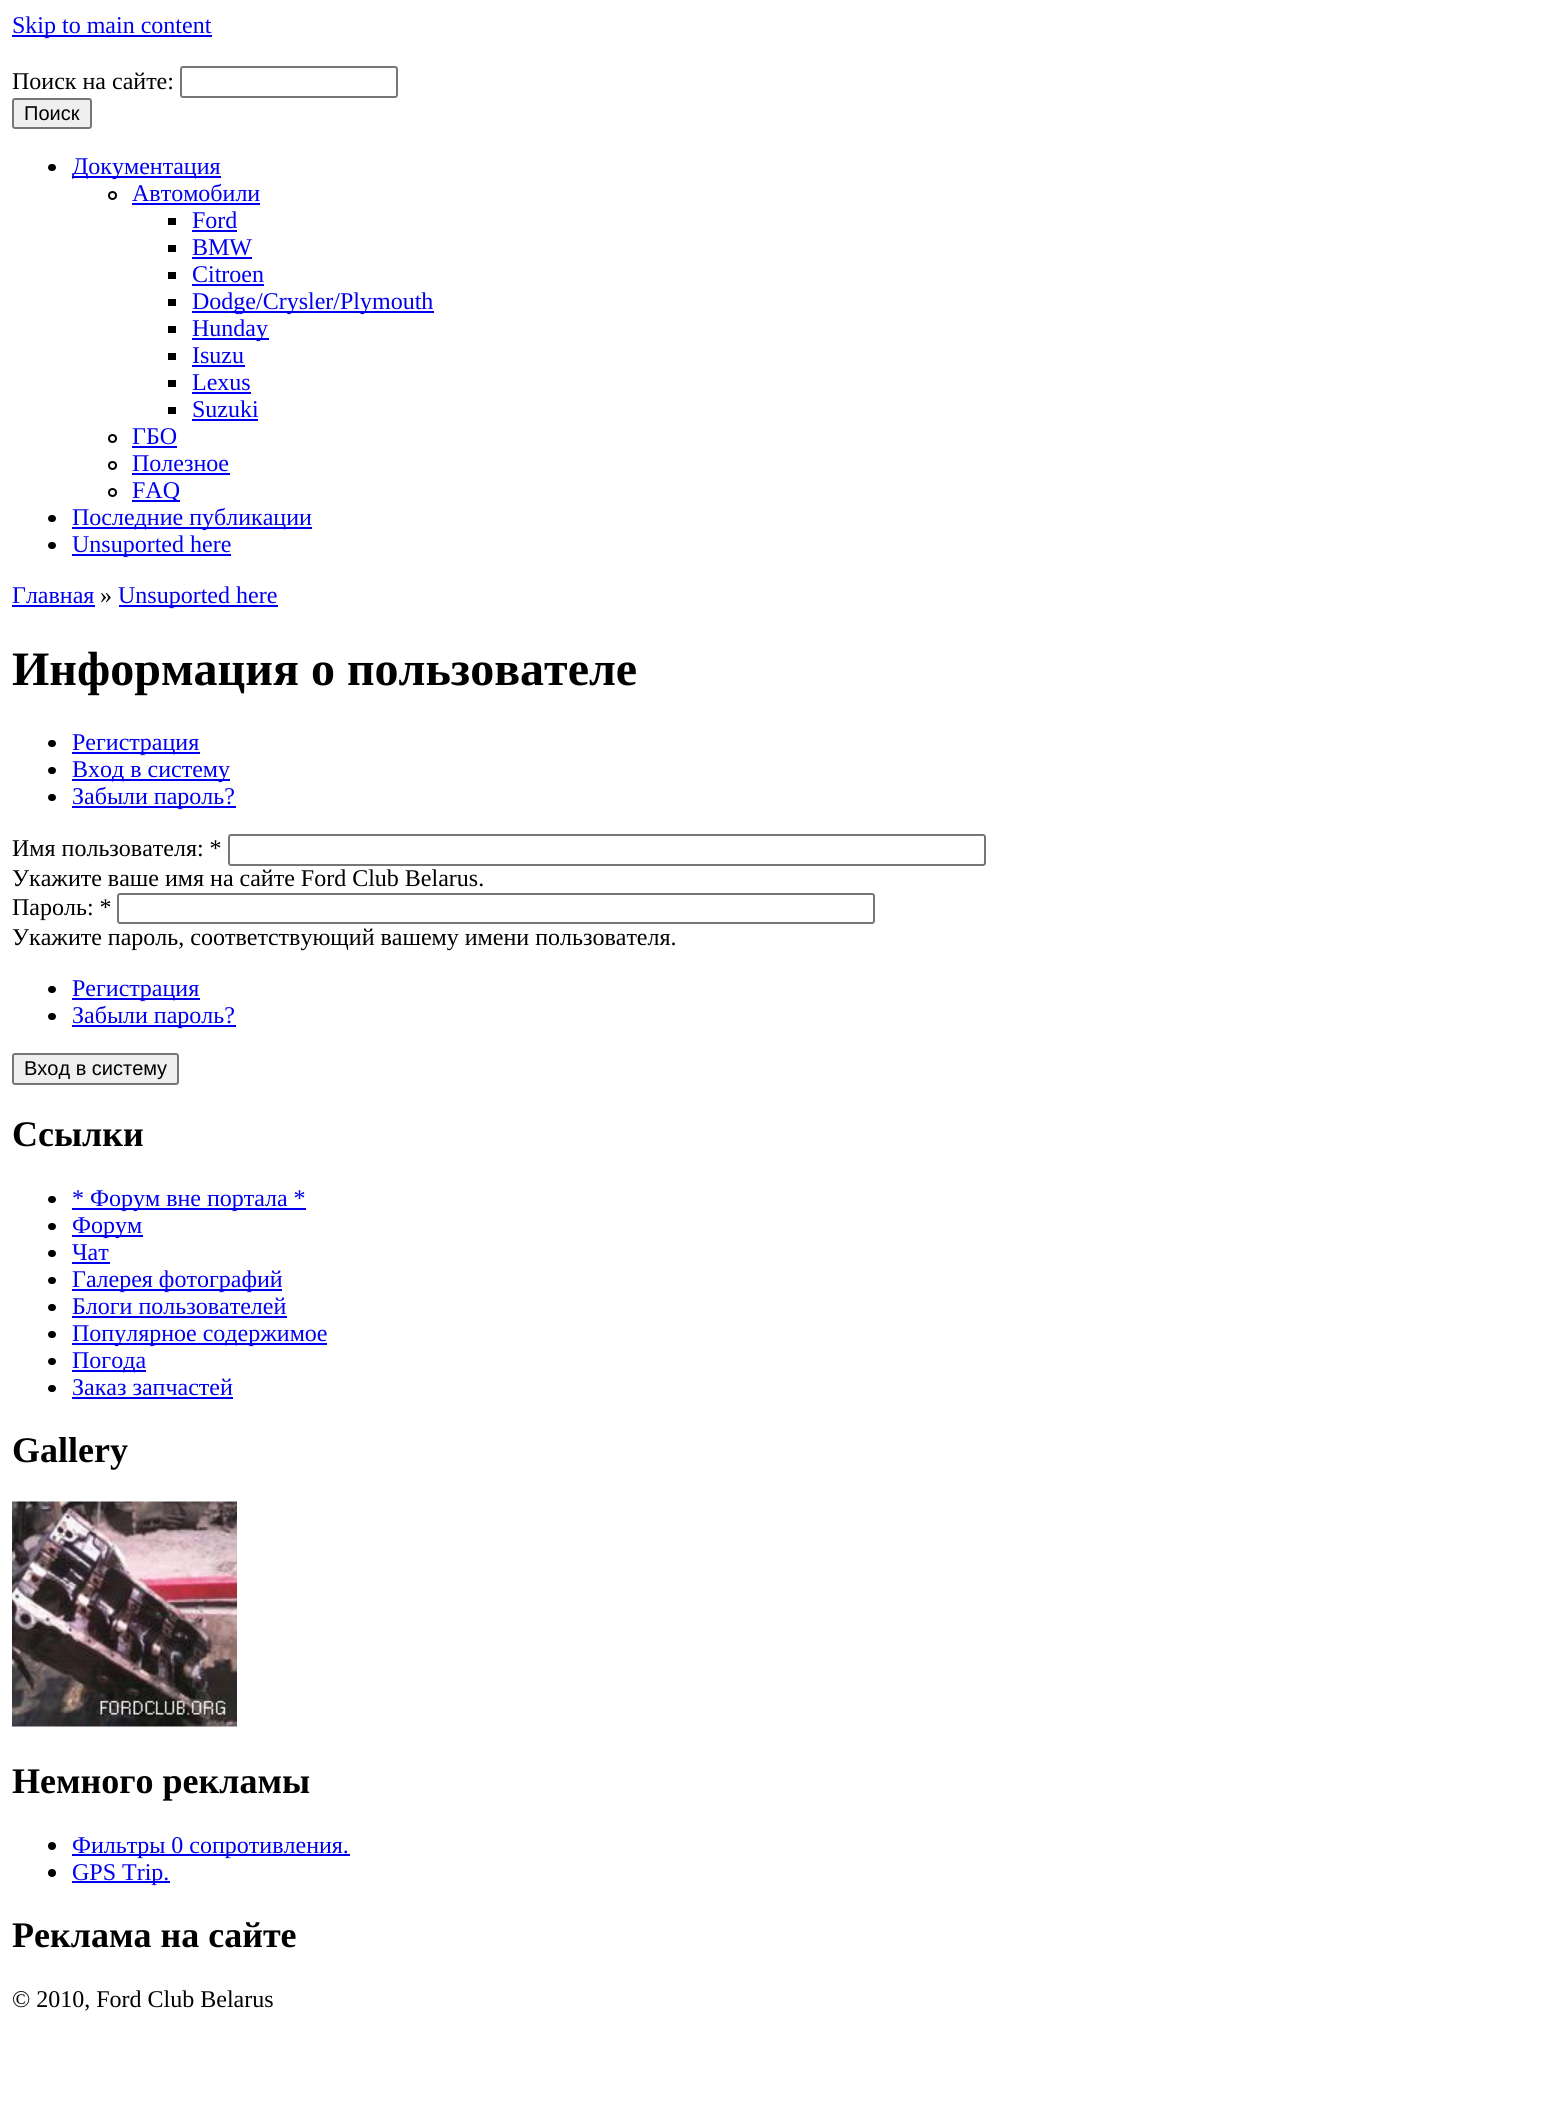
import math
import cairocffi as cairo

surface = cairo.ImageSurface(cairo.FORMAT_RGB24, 1547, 2120)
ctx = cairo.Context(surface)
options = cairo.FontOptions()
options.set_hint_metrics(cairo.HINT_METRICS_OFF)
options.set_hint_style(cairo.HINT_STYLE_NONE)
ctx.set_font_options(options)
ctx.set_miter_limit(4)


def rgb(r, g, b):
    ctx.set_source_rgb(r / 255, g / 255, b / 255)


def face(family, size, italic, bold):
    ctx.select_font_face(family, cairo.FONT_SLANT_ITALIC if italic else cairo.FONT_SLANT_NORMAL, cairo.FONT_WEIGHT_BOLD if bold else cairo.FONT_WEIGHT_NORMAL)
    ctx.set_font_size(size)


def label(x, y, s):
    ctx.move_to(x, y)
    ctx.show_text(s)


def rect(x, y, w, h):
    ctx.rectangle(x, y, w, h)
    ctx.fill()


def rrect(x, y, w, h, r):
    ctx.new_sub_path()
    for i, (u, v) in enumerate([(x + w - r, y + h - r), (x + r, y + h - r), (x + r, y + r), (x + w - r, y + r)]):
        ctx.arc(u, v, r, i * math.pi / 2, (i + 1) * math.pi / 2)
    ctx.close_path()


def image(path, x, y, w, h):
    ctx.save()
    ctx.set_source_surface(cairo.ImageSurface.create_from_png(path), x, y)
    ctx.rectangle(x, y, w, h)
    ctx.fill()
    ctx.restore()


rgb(255, 255, 255)
ctx.paint()
rgb(0, 0, 238)
rect(12, 35, 200, 2)
face('Liberation Serif', 24, 0, 0)
label(12, 33, 'Skip to main content')
rgb(0, 0, 0)
label(12, 89, 'Поиск на сайте:')
rrect(181, 67, 216, 30, 2)
rgb(118, 118, 118)
ctx.stroke()
rgb(239, 239, 239)
rrect(13, 99, 78, 29, 2)
ctx.fill_preserve()
rgb(118, 118, 118)
ctx.stroke()
face('Liberation Sans', 20, 0, 0)
rgb(0, 0, 0)
label(24, 120, 'Поиск')
rrect(48, 164, 8, 7, 3.5)
ctx.fill()
rgb(0, 0, 238)
rect(72, 176, 149, 2)
face('Liberation Serif', 24, 0, 0)
label(72, 174, 'Документация')
ctx.new_path()
ctx.arc(112.5, 195.5, 3.5, 0, 2 * math.pi)
rgb(0, 0, 0)
ctx.stroke()
rgb(0, 0, 238)
label(132, 201, 'Автомобили')
rect(132, 203, 128, 2)
rgb(0, 0, 0)
rect(168, 218, 8, 7)
rgb(0, 0, 238)
label(192, 228, 'Ford')
rect(192, 230, 45, 2)
rgb(0, 0, 0)
rect(168, 245, 8, 7)
rgb(0, 0, 238)
label(192, 255, 'BMW')
rect(192, 257, 60, 2)
rgb(0, 0, 0)
rect(168, 272, 8, 7)
rgb(0, 0, 238)
label(192, 282, 'Citroen')
rect(192, 284, 72, 2)
rgb(0, 0, 0)
rect(168, 299, 8, 7)
rgb(0, 0, 238)
rect(192, 311, 242, 2)
label(192, 309, 'Dodge/Crysler/Plymouth')
rgb(0, 0, 0)
rect(168, 326, 8, 7)
rgb(0, 0, 238)
rect(192, 338, 77, 2)
label(192, 336, 'Hunday')
rgb(0, 0, 0)
rect(168, 353, 8, 7)
rgb(0, 0, 238)
label(192, 363, 'Isuzu')
rect(192, 365, 53, 2)
rgb(0, 0, 0)
rect(168, 380, 8, 7)
rgb(0, 0, 238)
label(192, 390, 'Lexus')
rect(192, 392, 59, 2)
rgb(0, 0, 0)
rect(168, 407, 8, 7)
rgb(0, 0, 238)
label(192, 417, 'Suzuki')
rect(192, 419, 66, 2)
ctx.new_path()
ctx.arc(112.5, 438.5, 3.5, 0, 2 * math.pi)
rgb(0, 0, 0)
ctx.stroke()
rgb(0, 0, 238)
label(132, 444, 'ГБО')
rect(132, 446, 45, 2)
ctx.new_path()
ctx.arc(112.5, 465.5, 3.5, 0, 2 * math.pi)
rgb(0, 0, 0)
ctx.stroke()
rgb(0, 0, 238)
label(132, 471, 'Полезное')
rect(132, 473, 98, 2)
ctx.new_path()
ctx.arc(112.5, 492.5, 3.5, 0, 2 * math.pi)
rgb(0, 0, 0)
ctx.stroke()
rgb(0, 0, 238)
rect(132, 500, 48, 2)
label(132, 498, 'FAQ')
rgb(0, 0, 0)
rrect(48, 515, 8, 7, 3.5)
ctx.fill()
rgb(0, 0, 238)
rect(72, 527, 240, 2)
label(72, 525, 'Последние публикации')
rgb(0, 0, 0)
rrect(48, 542, 8, 7, 3.5)
ctx.fill()
rgb(0, 0, 238)
rect(72, 554, 159, 2)
label(72, 552, 'Unsuported here')
label(12, 603, 'Главная')
rect(12, 605, 83, 2)
rgb(0, 0, 0)
label(100, 603, '»')
rgb(0, 0, 238)
rect(119, 605, 159, 2)
label(118, 603, 'Unsuported here')
face('Liberation Serif', 48, 0, 1)
rgb(0, 0, 0)
label(12, 685, 'Информация о пользователе')
rrect(48, 740, 8, 7, 3.5)
ctx.fill()
rgb(0, 0, 238)
rect(72, 752, 128, 2)
face('Liberation Serif', 24, 0, 0)
label(72, 750, 'Регистрация')
rgb(0, 0, 0)
rrect(48, 767, 8, 7, 3.5)
ctx.fill()
rgb(0, 0, 238)
rect(72, 779, 158, 2)
label(72, 777, 'Вход в систему')
rgb(0, 0, 0)
rrect(48, 794, 8, 7, 3.5)
ctx.fill()
rgb(0, 0, 238)
rect(72, 806, 164, 2)
label(72, 804, 'Забыли пароль?')
rgb(0, 0, 0)
label(12, 856, 'Имя пользователя: *')
rrect(229, 835, 756, 30, 2)
rgb(118, 118, 118)
ctx.stroke()
rgb(0, 0, 0)
label(12, 886, 'Укажите ваше имя на сайте Ford Club Belarus.')
label(12, 915, 'Пароль: *')
rrect(118, 894, 756, 29, 2)
rgb(118, 118, 118)
ctx.stroke()
rgb(0, 0, 0)
label(12, 945, 'Укажите пароль, соответствующий вашему имени пользователя.')
rrect(48, 986, 8, 7, 3.5)
ctx.fill()
rgb(0, 0, 238)
rect(72, 998, 128, 2)
label(72, 996, 'Регистрация')
rgb(0, 0, 0)
rrect(48, 1013, 8, 7, 3.5)
ctx.fill()
rgb(0, 0, 238)
rect(72, 1025, 164, 2)
label(72, 1023, 'Забыли пароль?')
rgb(239, 239, 239)
rrect(13, 1054, 165, 30, 2)
ctx.fill_preserve()
rgb(118, 118, 118)
ctx.stroke()
face('Liberation Sans', 20, 0, 0)
rgb(0, 0, 0)
label(24, 1075, 'Вход в систему')
face('Liberation Serif', 36, 0, 1)
label(12, 1146, 'Ссылки')
rrect(48, 1196, 8, 7, 3.5)
ctx.fill()
rgb(0, 0, 238)
rect(72, 1208, 234, 2)
face('Liberation Serif', 24, 0, 0)
label(72, 1206, '* Форум вне портала *')
rgb(0, 0, 0)
rrect(48, 1223, 8, 7, 3.5)
ctx.fill()
rgb(0, 0, 238)
rect(72, 1235, 71, 2)
label(72, 1233, 'Форум')
rgb(0, 0, 0)
rrect(48, 1250, 8, 7, 3.5)
ctx.fill()
rgb(0, 0, 238)
label(72, 1260, 'Чат')
rect(72, 1262, 38, 2)
rgb(0, 0, 0)
rrect(48, 1277, 8, 7, 3.5)
ctx.fill()
rgb(0, 0, 238)
rect(72, 1289, 210, 2)
label(72, 1287, 'Галерея фотографий')
rgb(0, 0, 0)
rrect(48, 1304, 8, 7, 3.5)
ctx.fill()
rgb(0, 0, 238)
label(72, 1314, 'Блоги пользователей')
rect(72, 1316, 215, 2)
rgb(0, 0, 0)
rrect(48, 1331, 8, 7, 3.5)
ctx.fill()
rgb(0, 0, 238)
rect(72, 1343, 255, 2)
label(72, 1341, 'Популярное содержимое')
rgb(0, 0, 0)
rrect(48, 1358, 8, 7, 3.5)
ctx.fill()
rgb(0, 0, 238)
rect(72, 1370, 74, 2)
label(72, 1368, 'Погода')
rgb(0, 0, 0)
rrect(48, 1385, 8, 7, 3.5)
ctx.fill()
rgb(0, 0, 238)
label(72, 1395, 'Заказ запчастей')
rect(72, 1397, 161, 2)
face('Liberation Serif', 36, 0, 1)
rgb(0, 0, 0)
label(12, 1462, 'Gallery')
image('image0.png', 12, 1501, 225, 226)
label(12, 1793, 'Немного рекламы')
ctx.new_path()
ctx.arc(52, 1846, 4, 0, 2 * math.pi)
ctx.fill()
rgb(0, 0, 238)
rect(72, 1854, 278, 2)
face('Liberation Serif', 24, 0, 0)
label(72, 1853, 'Фильтры 0 сопротивления.')
rgb(0, 0, 0)
ctx.new_path()
ctx.arc(52, 1873, 4, 0, 2 * math.pi)
ctx.fill()
rgb(0, 0, 238)
rect(72, 1881, 98, 2)
label(72, 1880, 'GPS Trip.')
face('Liberation Serif', 36, 0, 1)
rgb(0, 0, 0)
label(12, 1947, 'Реклама на сайте')
face('Liberation Serif', 24, 0, 0)
label(12, 2007, '© 2010, Ford Club Belarus')
surface.write_to_png('render.png')
